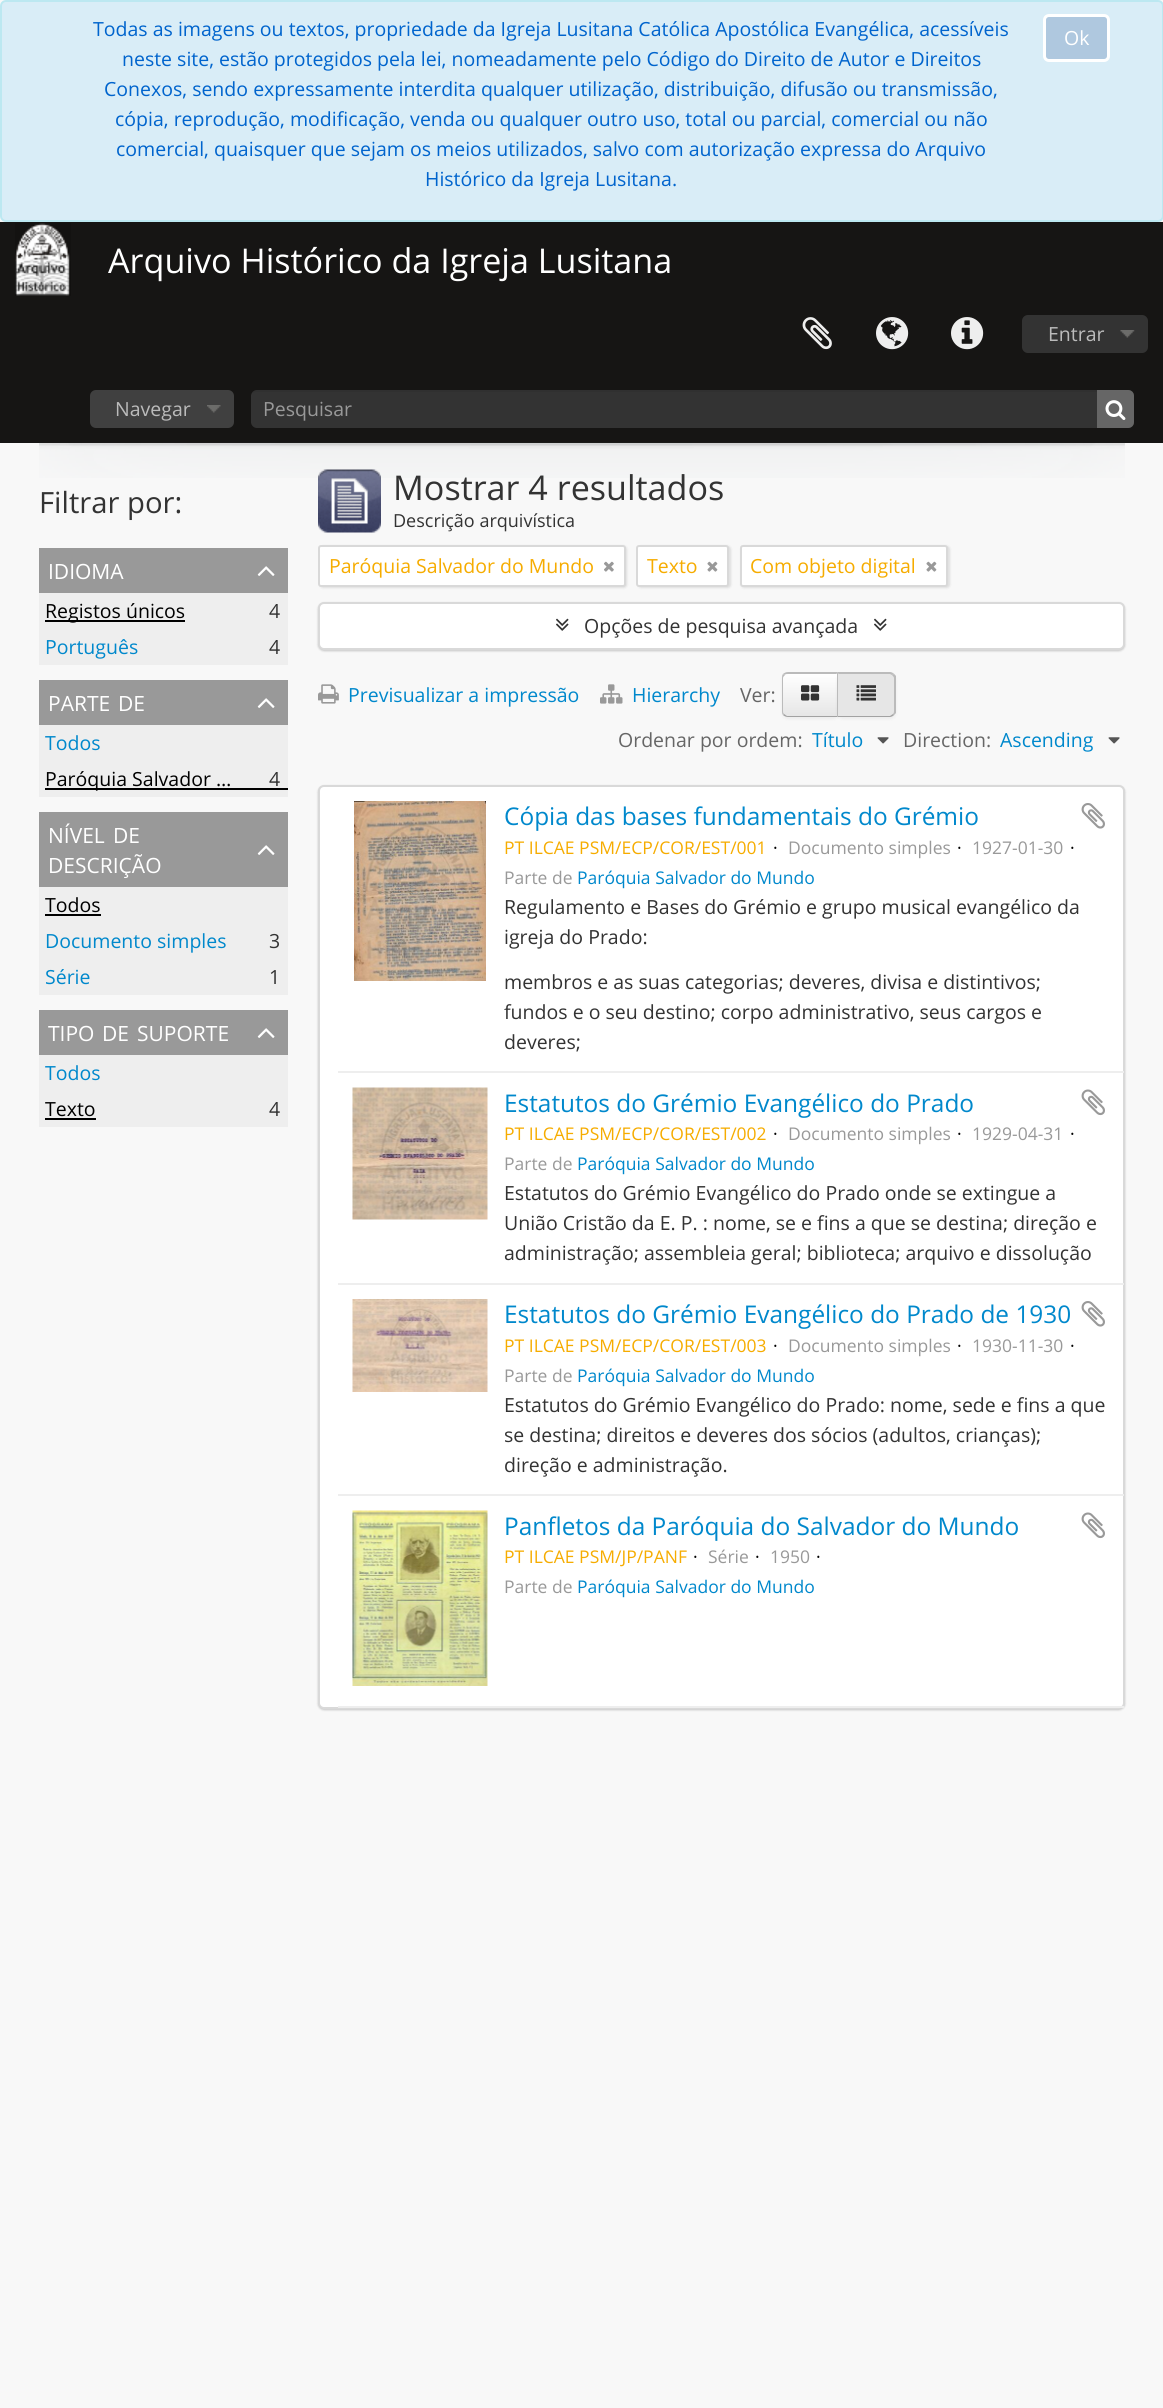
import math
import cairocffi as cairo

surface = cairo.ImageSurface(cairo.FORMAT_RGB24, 1163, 2408)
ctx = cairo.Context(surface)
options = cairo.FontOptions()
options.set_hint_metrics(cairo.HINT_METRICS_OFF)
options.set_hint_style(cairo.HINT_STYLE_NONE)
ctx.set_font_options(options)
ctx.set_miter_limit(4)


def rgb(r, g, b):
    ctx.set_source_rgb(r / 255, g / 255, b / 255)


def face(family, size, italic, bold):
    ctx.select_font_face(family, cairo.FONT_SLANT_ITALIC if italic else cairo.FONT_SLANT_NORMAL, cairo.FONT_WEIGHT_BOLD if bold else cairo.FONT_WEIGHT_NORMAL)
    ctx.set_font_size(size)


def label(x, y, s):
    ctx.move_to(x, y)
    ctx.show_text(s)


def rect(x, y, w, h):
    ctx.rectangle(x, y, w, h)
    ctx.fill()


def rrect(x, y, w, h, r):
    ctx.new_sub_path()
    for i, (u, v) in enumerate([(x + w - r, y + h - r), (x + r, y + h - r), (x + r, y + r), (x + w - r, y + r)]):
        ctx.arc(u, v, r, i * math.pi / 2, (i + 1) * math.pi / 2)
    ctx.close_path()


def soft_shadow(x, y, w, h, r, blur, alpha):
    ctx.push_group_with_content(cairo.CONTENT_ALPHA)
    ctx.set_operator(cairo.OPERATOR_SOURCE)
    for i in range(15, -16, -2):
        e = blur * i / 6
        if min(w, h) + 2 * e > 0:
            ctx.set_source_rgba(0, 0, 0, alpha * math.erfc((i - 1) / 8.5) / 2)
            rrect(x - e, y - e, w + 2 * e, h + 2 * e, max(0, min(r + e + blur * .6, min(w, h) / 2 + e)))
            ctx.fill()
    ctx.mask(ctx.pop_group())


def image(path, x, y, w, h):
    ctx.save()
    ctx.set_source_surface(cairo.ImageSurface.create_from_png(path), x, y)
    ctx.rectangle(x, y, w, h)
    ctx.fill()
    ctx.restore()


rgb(248, 248, 248)
ctx.paint()
rgb(217, 237, 247)
rrect(1, 1, 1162, 220, 5)
ctx.fill_preserve()
rgb(188, 232, 241)
ctx.stroke()
face('Open Sans', 19.5, 0, 0)
rgb(0, 100, 205)
label(93, 36, 'Todas as imagens ou textos, propriedade da Igreja Lusitana Católica Apostólica Evangélica, acessíveis')
label(122, 66, 'neste site, estão protegidos pela lei, nomeadamente pelo Código do Direito de Autor e Direitos')
label(104, 96, 'Conexos, sendo expressamente interdita qualquer utilização, distribuição, difusão ou transmissão,')
label(115, 126, 'cópia, reprodução, modificação, venda ou qualquer outro uso, total ou parcial, comercial ou não')
label(116, 156, 'comercial, quaisquer que sejam os meios utilizados, salvo com autorização expressa do Arquivo')
label(425, 186, 'Histórico da Igreja Lusitana.')
rgb(175, 200, 223)
rrect(1044.5, 15.5, 64, 45, 4.5)
ctx.fill_preserve()
rgb(255, 255, 255)
ctx.set_line_width(3)
ctx.stroke()
label(1064, 45, 'Ok')
rgb(22, 21, 20)
rect(0, 222, 1163, 221)
image('image0.png', 15, 223, 56, 73)
face('Open Sans', 34.1, 0, 0)
rgb(255, 255, 255)
label(108, 273, 'Arquivo Histórico da Igreja Lusitana')
image('image1.png', 802, 317, 30, 33)
image('image2.png', 876, 317, 33, 33)
image('image3.png', 951, 317, 33, 33)
rgb(51, 51, 51)
rrect(1022, 315, 126, 38, 6)
ctx.fill()
image('image4.png', 1120, 330, 15, 8)
face('Open Sans', 19.5, 0, 0)
rgb(187, 187, 187)
label(1048, 341, 'Entrar')
rgb(64, 64, 64)
rrect(90, 390, 144, 38, 6)
ctx.fill()
image('image5.png', 207, 405, 14, 8)
rgb(187, 187, 187)
label(115, 416, 'Navegar')
rgb(51, 51, 51)
rrect(251, 390, 883, 38, 6)
ctx.fill()
ctx.set_source_rgba(0, 0, 0, 0.07)
ctx.new_path()
ctx.move_to(256, 392)
ctx.line_to(1128, 392)
ctx.curve_to(1131, 392, 1134, 394, 1134, 398)
ctx.line_to(1134, 396)
ctx.curve_to(1134, 393, 1131, 390, 1128, 390)
ctx.line_to(257, 390)
ctx.curve_to(254, 390, 252, 392, 251, 394)
ctx.curve_to(252, 393, 254, 392, 256, 392)
ctx.close_path()
ctx.fill()
rgb(153, 153, 153)
label(263, 416, 'Pesquisar')
rgb(102, 102, 102)
ctx.new_path()
ctx.move_to(1097, 390)
ctx.line_to(1128, 390)
ctx.curve_to(1131.5, 390, 1134, 392.5, 1134, 396)
ctx.line_to(1134, 422)
ctx.curve_to(1134, 425.5, 1131.5, 428, 1128, 428)
ctx.line_to(1097, 428)
ctx.close_path()
ctx.fill()
image('image6.png', 1105, 400, 21, 20)
image('image7.png', 39, 442, 1086, 36)
face('Open Sans', 29.25, 0, 0)
rgb(51, 51, 51)
label(39, 513, 'Filtrar por:')
rgb(153, 153, 153)
rect(39, 548, 249, 45)
face('Open Sans', 21, 0, 0)
rgb(255, 255, 255)
label(48, 579, 'IDIOMA')
image('image8.png', 257, 566, 18, 10)
rgb(238, 238, 238)
rect(39, 593, 249, 72)
rgb(0, 0, 0)
rect(45, 620, 140, 2)
face('Open Sans', 19.5, 0, 0)
label(45, 618, 'Registos únicos')
rgb(51, 51, 51)
label(269, 618, '4')
rgb(0, 136, 204)
label(45, 654, 'Português')
rgb(51, 51, 51)
label(269, 654, '4')
rgb(153, 153, 153)
rect(39, 680, 249, 45)
face('Open Sans', 21, 0, 0)
rgb(255, 255, 255)
label(48, 711, 'PARTE')
label(118, 711, 'DE')
image('image8.png', 257, 698, 18, 10)
rgb(238, 238, 238)
rect(39, 725, 249, 72)
face('Open Sans', 19.5, 0, 0)
rgb(0, 136, 204)
label(45, 750, 'Todos')
rgb(0, 0, 0)
rect(45, 788, 243, 2)
label(45, 786, 'Paróquia Salvador …')
rgb(51, 51, 51)
label(269, 786, '4')
rgb(153, 153, 153)
rect(39, 812, 249, 75)
face('Open Sans', 21, 0, 0)
rgb(255, 255, 255)
label(48, 843, 'NÍVEL')
label(113, 843, 'DE')
image('image8.png', 257, 845, 18, 10)
label(48, 873, 'DESCRIÇÃO')
rgb(238, 238, 238)
rect(39, 887, 249, 108)
face('Open Sans', 19.5, 0, 0)
rgb(0, 0, 0)
label(45, 912, 'Todos')
rect(45, 914, 56, 2)
rgb(0, 136, 204)
label(45, 948, 'Documento simples')
rgb(51, 51, 51)
label(269, 948, '3')
rgb(0, 136, 204)
label(45, 984, 'Série')
rgb(51, 51, 51)
label(269, 984, '1')
rgb(153, 153, 153)
rect(39, 1010, 249, 45)
face('Open Sans', 21, 0, 0)
rgb(255, 255, 255)
label(48, 1041, 'TIPO')
label(102, 1041, 'DE')
label(137, 1041, 'SUPORTE')
image('image8.png', 257, 1028, 18, 10)
rgb(238, 238, 238)
rect(39, 1055, 249, 72)
face('Open Sans', 19.5, 0, 0)
rgb(0, 136, 204)
label(45, 1080, 'Todos')
rgb(0, 0, 0)
label(45, 1116, 'Texto')
rect(45, 1118, 51, 2)
rgb(51, 51, 51)
label(269, 1116, '4')
image('image9.png', 318, 469, 63, 64)
face('Open Sans', 34.1, 0, 0)
label(393, 500, 'Mostrar 4 resultados')
face('Open Sans', 18, 0, 0)
label(393, 527, 'Descrição arquivística')
rgb(0, 0, 0)
soft_shadow(320, 546, 307, 42, 3, 1, 0.1)
rgb(255, 255, 255)
rrect(319, 546, 306, 40, 2)
ctx.fill_preserve()
rgb(217, 217, 217)
ctx.set_line_width(2)
ctx.stroke()
face('Open Sans', 19.5, 0, 0)
rgb(246, 172, 0)
label(329, 573, 'Paróquia Salvador do Mundo')
image('image10.png', 604, 561, 10, 11)
rgb(0, 0, 0)
soft_shadow(638, 546, 93, 42, 3, 1, 0.1)
rgb(255, 255, 255)
rrect(637, 546, 91, 40, 2)
ctx.fill_preserve()
rgb(217, 217, 217)
ctx.stroke()
rgb(246, 172, 0)
label(647, 573, 'Texto')
image('image11.png', 707, 561, 11, 11)
rgb(0, 0, 0)
soft_shadow(741, 546, 209, 42, 3, 1, 0.1)
rgb(255, 255, 255)
rrect(741, 546, 206, 40, 2)
ctx.fill_preserve()
rgb(217, 217, 217)
ctx.stroke()
rgb(246, 172, 0)
label(750, 573, 'Com objeto digital')
image('image11.png', 926, 561, 11, 11)
rgb(0, 0, 0)
soft_shadow(318, 603, 807, 48, 6, 1, 0.2)
rgb(255, 255, 255)
rrect(319, 603, 805, 46, 5)
ctx.fill_preserve()
rgb(217, 217, 217)
ctx.stroke()
image('image12.png', 556, 618, 13, 13)
rgb(51, 51, 51)
label(584, 633, 'Opções de pesquisa avançada')
image('image12.png', 874, 618, 13, 13)
image('image13.png', 318, 684, 21, 20)
rgb(0, 136, 204)
label(348, 702, 'Previsualizar a impressão')
image('image14.png', 600, 684, 23, 20)
label(632, 702, 'Hierarchy')
rgb(102, 102, 102)
label(740, 702, 'Ver:')
rgb(0, 0, 0)
soft_shadow(782, 674, 57, 45, 6, 1.5, 0.05)
ctx.save()
ctx.new_path()
ctx.move_to(788, 672)
ctx.line_to(839, 672)
ctx.line_to(839, 717)
ctx.line_to(788, 717)
ctx.curve_to(784.5, 717, 782, 714.5, 782, 711)
ctx.line_to(782, 678)
ctx.curve_to(782, 674.5, 784.5, 672, 788, 672)
ctx.close_path()
ctx.clip()
gradient = cairo.LinearGradient(810, 674, 810, 716)
gradient.add_color_stop_rgba(0, 1, 1, 1, 1)
gradient.add_color_stop_rgba(1, 0.902, 0.902, 0.902, 1)
ctx.set_source(gradient)
rect(782, 674, 55, 42)
ctx.restore()
rgb(187, 187, 187)
ctx.new_path()
ctx.move_to(788, 672)
ctx.curve_to(786, 672, 784, 673, 783, 674)
ctx.line_to(785, 675)
ctx.curve_to(785, 674, 787, 674, 788, 674)
ctx.line_to(836, 674)
ctx.line_to(838, 672)
ctx.close_path()
ctx.fill()
ctx.new_path()
ctx.move_to(838, 672)
ctx.line_to(838, 716)
ctx.line_to(837, 716)
ctx.line_to(837, 674)
ctx.line_to(836, 674)
ctx.close_path()
ctx.fill()
rgb(162, 162, 162)
ctx.new_path()
ctx.move_to(788, 717)
ctx.line_to(838, 717)
ctx.line_to(838, 716)
ctx.line_to(837, 716)
ctx.line_to(787, 716)
ctx.line_to(784, 714)
ctx.line_to(783, 715)
ctx.curve_to(784, 716, 786, 717, 788, 717)
ctx.close_path()
ctx.fill()
rgb(187, 187, 187)
ctx.new_path()
ctx.move_to(783, 674)
ctx.curve_to(782, 675, 782, 677, 782, 678)
ctx.line_to(782, 711)
ctx.curve_to(782, 712, 782, 714, 783, 715)
ctx.line_to(784, 714)
ctx.curve_to(783, 713, 783, 712, 783, 711)
ctx.line_to(783, 678)
ctx.curve_to(783, 677, 784, 676, 785, 675)
ctx.close_path()
ctx.fill()
image('image15.png', 801, 685, 19, 16)
rgb(0, 0, 0)
soft_shadow(837, 674, 59, 45, 6, 1.5, 0.05)
rgb(230, 230, 230)
ctx.new_path()
ctx.move_to(837, 672)
ctx.line_to(890, 672)
ctx.curve_to(893.5, 672, 896, 674.5, 896, 678)
ctx.line_to(896, 711)
ctx.curve_to(896, 714.5, 893.5, 717, 890, 717)
ctx.line_to(837, 717)
ctx.close_path()
ctx.fill()
rgb(187, 187, 187)
ctx.new_path()
ctx.move_to(837, 672)
ctx.line_to(839, 674)
ctx.line_to(890, 674)
ctx.line_to(892, 675)
ctx.line_to(894, 674)
ctx.curve_to(893, 673, 891, 672, 890, 672)
ctx.close_path()
ctx.fill()
ctx.new_path()
ctx.move_to(896, 713)
ctx.line_to(894, 715)
ctx.line_to(893, 714)
ctx.curve_to(894, 713, 894, 712, 894, 711)
ctx.line_to(894, 678)
ctx.curve_to(894, 677, 893, 676, 892, 675)
ctx.line_to(894, 674)
ctx.line_to(896, 676)
ctx.close_path()
ctx.fill()
rgb(162, 162, 162)
ctx.new_path()
ctx.move_to(890, 717)
ctx.curve_to(891, 717, 893, 716, 894, 715)
ctx.line_to(893, 714)
ctx.line_to(890, 716)
ctx.line_to(838, 716)
ctx.line_to(837, 717)
ctx.close_path()
ctx.fill()
rgb(187, 187, 187)
ctx.new_path()
ctx.move_to(837, 672)
ctx.line_to(837, 717)
ctx.line_to(838, 716)
ctx.line_to(838, 674)
ctx.line_to(839, 674)
ctx.close_path()
ctx.fill()
image('image16.png', 856, 685, 20, 16)
rgb(102, 102, 102)
label(618, 747, 'Ordenar por ordem:')
rgb(0, 136, 204)
label(812, 747, 'Título')
image('image17.png', 877, 737, 12, 7)
rgb(102, 102, 102)
label(903, 747, 'Direction:')
rgb(0, 136, 204)
label(1000, 747, 'Ascending')
image('image17.png', 1108, 737, 12, 7)
rgb(0, 0, 0)
soft_shadow(318, 786, 807, 924, 6, 1, 0.2)
rgb(255, 255, 255)
rrect(319, 786, 805, 922, 5)
ctx.fill_preserve()
rgb(217, 217, 217)
ctx.stroke()
rgb(238, 238, 238)
rect(338, 1071, 786, 2)
image('image18.png', 354, 801, 132, 180)
face('Open Sans', 24.4, 0, 0)
rgb(0, 136, 204)
label(504, 825, 'Cópia das bases fundamentais do Grémio')
image('image19.png', 1081, 803, 24, 26)
face('Open Sans', 17.5, 0, 0)
rgb(246, 172, 0)
label(504, 854, 'PT ILCAE PSM/ECP/COR/EST/001')
rgb(0, 0, 0)
label(773, 854, '·')
rgb(153, 153, 153)
label(788, 854, 'Documento simples')
rgb(0, 0, 0)
label(957, 854, '·')
rgb(153, 153, 153)
label(972, 854, '1927-01-30')
rgb(0, 0, 0)
label(1070, 854, '·')
rgb(153, 153, 153)
label(504, 884, 'Parte de')
rgb(0, 136, 204)
label(577, 884, 'Paróquia Salvador do Mundo')
face('Open Sans', 19.5, 0, 0)
rgb(51, 51, 51)
label(504, 914, 'Regulamento e Bases do Grémio e grupo musical evangélico da')
label(504, 944, 'igreja do Prado:')
label(504, 989, 'membros e as suas categorias; deveres, divisa e distintivos;')
label(504, 1019, 'fundos e o seu destino; corpo administrativo, seus cargos e')
label(504, 1049, 'deveres;')
rgb(238, 238, 238)
rect(338, 1283, 786, 2)
image('image20.png', 352, 1087, 136, 133)
face('Open Sans', 24.4, 0, 0)
rgb(0, 136, 204)
label(504, 1112, 'Estatutos do Grémio Evangélico do Prado')
image('image21.png', 1081, 1089, 24, 27)
face('Open Sans', 17.5, 0, 0)
rgb(246, 172, 0)
label(504, 1140, 'PT ILCAE PSM/ECP/COR/EST/002')
rgb(0, 0, 0)
label(773, 1140, '·')
rgb(153, 153, 153)
label(788, 1140, 'Documento simples')
rgb(0, 0, 0)
label(957, 1140, '·')
rgb(153, 153, 153)
label(972, 1140, '1929-04-31')
rgb(0, 0, 0)
label(1070, 1140, '·')
rgb(153, 153, 153)
label(504, 1170, 'Parte de')
rgb(0, 136, 204)
label(577, 1170, 'Paróquia Salvador do Mundo')
face('Open Sans', 19.5, 0, 0)
rgb(51, 51, 51)
label(504, 1200, 'Estatutos do Grémio Evangélico do Prado onde se extingue a')
label(504, 1230, 'União Cristão da E. P. : nome, se e fins a que se destina; direção e')
label(504, 1260, 'administração; assembleia geral; biblioteca; arquivo e dissolução')
rgb(238, 238, 238)
rect(338, 1494, 786, 2)
image('image22.png', 352, 1299, 136, 93)
face('Open Sans', 24.4, 0, 0)
rgb(0, 136, 204)
label(504, 1323, 'Estatutos do Grémio Evangélico do Prado de 1930')
image('image19.png', 1081, 1301, 24, 26)
face('Open Sans', 17.5, 0, 0)
rgb(246, 172, 0)
label(504, 1352, 'PT ILCAE PSM/ECP/COR/EST/003')
rgb(0, 0, 0)
label(773, 1352, '·')
rgb(153, 153, 153)
label(788, 1352, 'Documento simples')
rgb(0, 0, 0)
label(957, 1352, '·')
rgb(153, 153, 153)
label(972, 1352, '1930-11-30')
rgb(0, 0, 0)
label(1070, 1352, '·')
rgb(153, 153, 153)
label(504, 1382, 'Parte de')
rgb(0, 136, 204)
label(577, 1382, 'Paróquia Salvador do Mundo')
face('Open Sans', 19.5, 0, 0)
rgb(51, 51, 51)
label(504, 1412, 'Estatutos do Grémio Evangélico do Prado: nome, sede e fins a que')
label(504, 1442, 'se destina; direitos e deveres dos sócios (adultos, crianças);')
label(504, 1472, 'direção e administração.')
rgb(238, 238, 238)
rect(338, 1706, 786, 2)
image('image23.png', 352, 1510, 136, 176)
face('Open Sans', 24.4, 0, 0)
rgb(0, 136, 204)
label(504, 1535, 'Panfletos da Paróquia do Salvador do Mundo')
image('image21.png', 1081, 1512, 24, 27)
face('Open Sans', 17.5, 0, 0)
rgb(246, 172, 0)
label(504, 1563, 'PT ILCAE PSM/JP/PANF')
rgb(0, 0, 0)
label(693, 1563, '·')
rgb(153, 153, 153)
label(708, 1563, 'Série')
rgb(0, 0, 0)
label(755, 1563, '·')
rgb(153, 153, 153)
label(770, 1563, '1950')
rgb(0, 0, 0)
label(816, 1563, '·')
rgb(153, 153, 153)
label(504, 1593, 'Parte de')
rgb(0, 136, 204)
label(577, 1593, 'Paróquia Salvador do Mundo')
surface.write_to_png('render.png')
